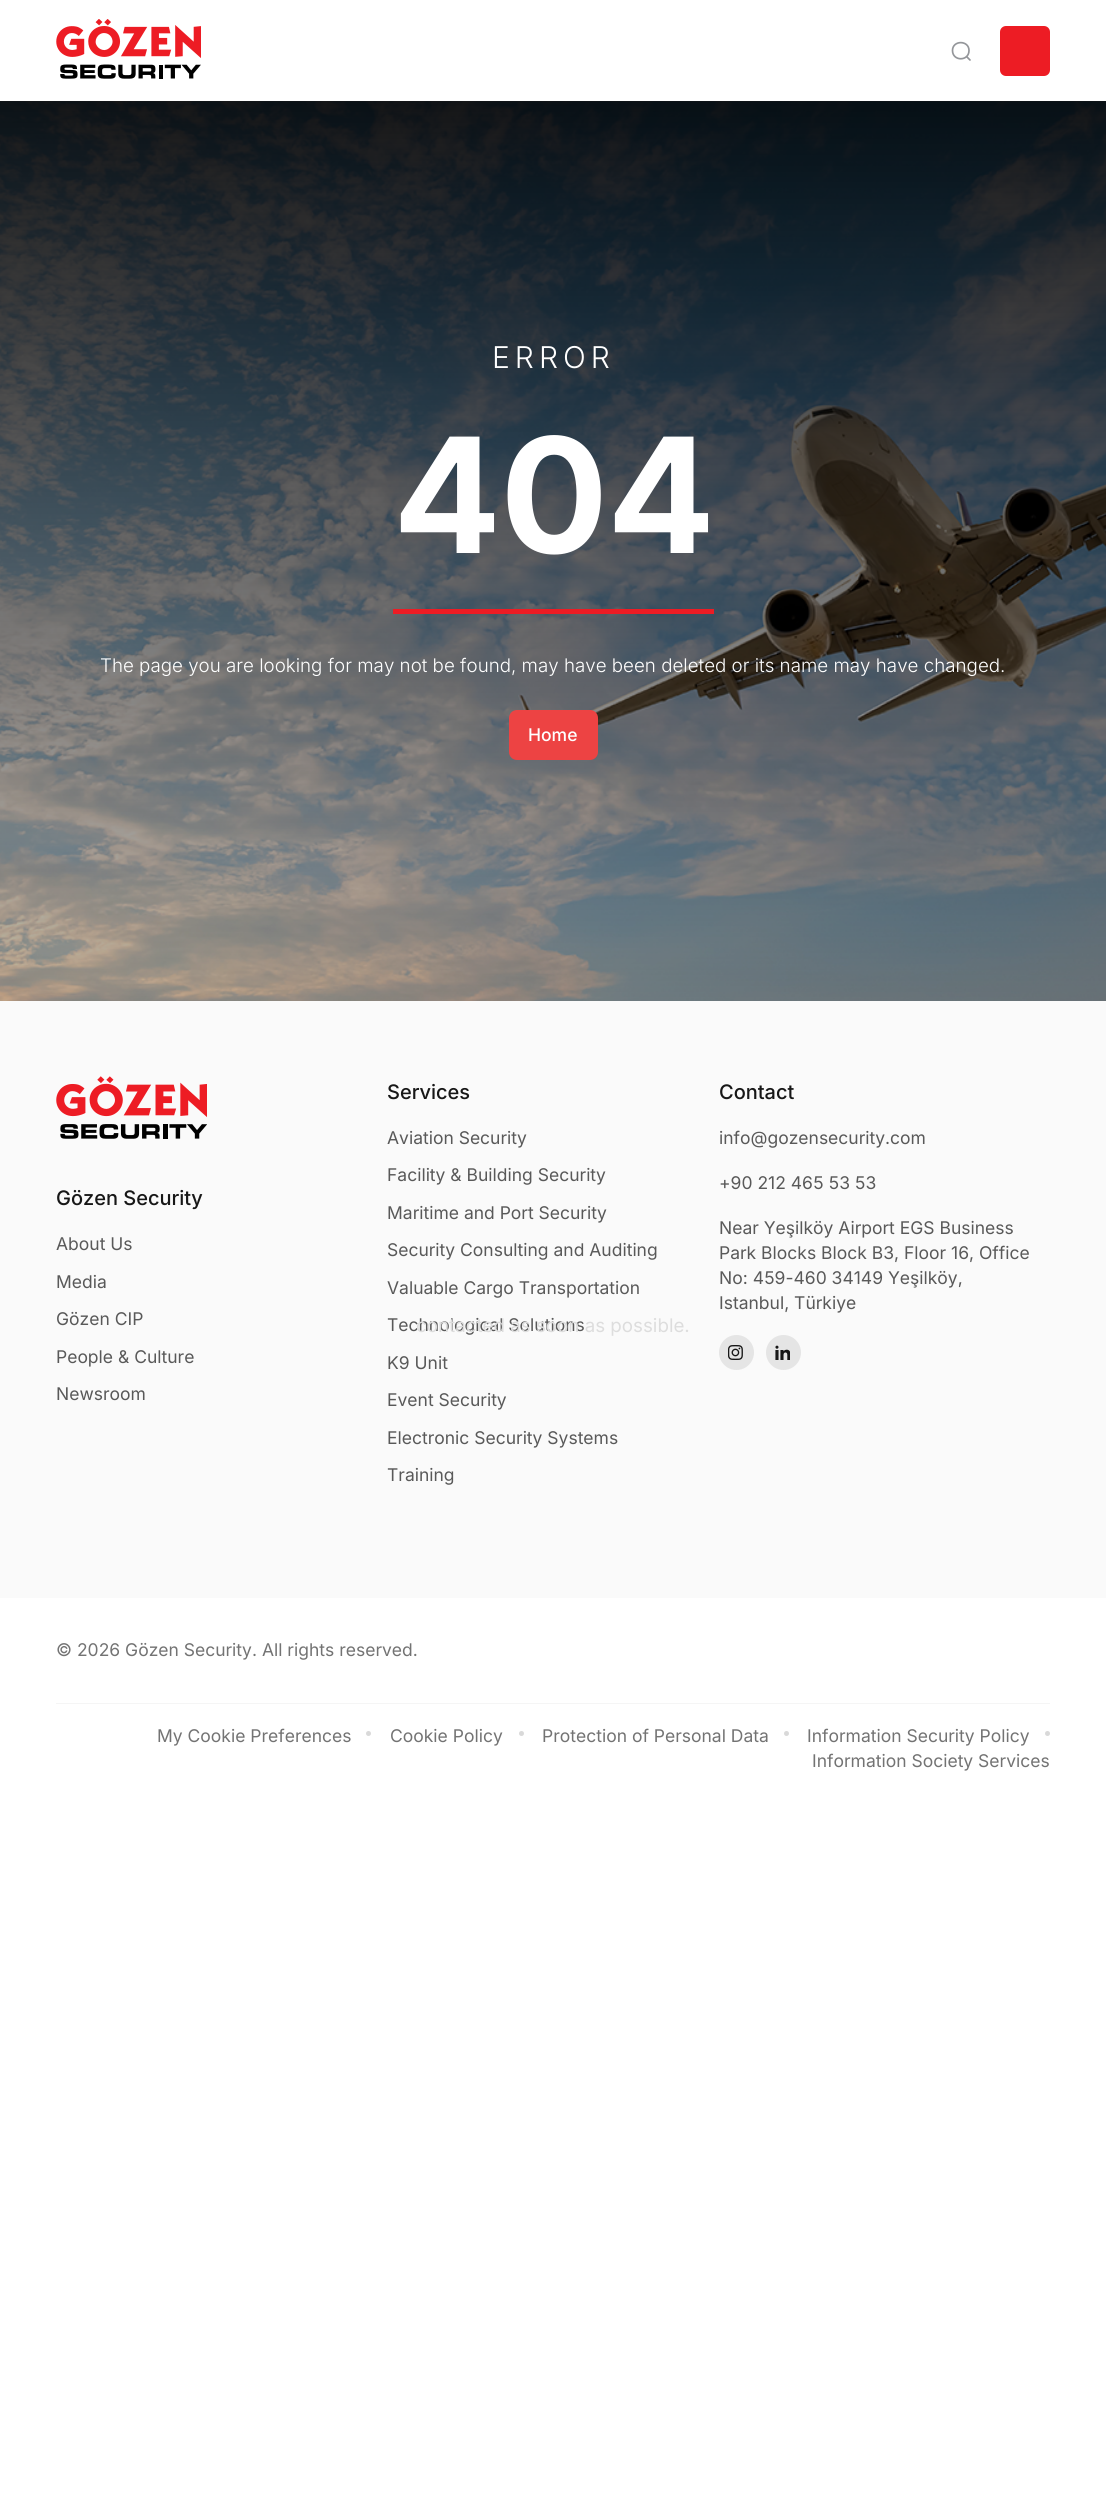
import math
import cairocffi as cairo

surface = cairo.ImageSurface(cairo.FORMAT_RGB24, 1106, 2498)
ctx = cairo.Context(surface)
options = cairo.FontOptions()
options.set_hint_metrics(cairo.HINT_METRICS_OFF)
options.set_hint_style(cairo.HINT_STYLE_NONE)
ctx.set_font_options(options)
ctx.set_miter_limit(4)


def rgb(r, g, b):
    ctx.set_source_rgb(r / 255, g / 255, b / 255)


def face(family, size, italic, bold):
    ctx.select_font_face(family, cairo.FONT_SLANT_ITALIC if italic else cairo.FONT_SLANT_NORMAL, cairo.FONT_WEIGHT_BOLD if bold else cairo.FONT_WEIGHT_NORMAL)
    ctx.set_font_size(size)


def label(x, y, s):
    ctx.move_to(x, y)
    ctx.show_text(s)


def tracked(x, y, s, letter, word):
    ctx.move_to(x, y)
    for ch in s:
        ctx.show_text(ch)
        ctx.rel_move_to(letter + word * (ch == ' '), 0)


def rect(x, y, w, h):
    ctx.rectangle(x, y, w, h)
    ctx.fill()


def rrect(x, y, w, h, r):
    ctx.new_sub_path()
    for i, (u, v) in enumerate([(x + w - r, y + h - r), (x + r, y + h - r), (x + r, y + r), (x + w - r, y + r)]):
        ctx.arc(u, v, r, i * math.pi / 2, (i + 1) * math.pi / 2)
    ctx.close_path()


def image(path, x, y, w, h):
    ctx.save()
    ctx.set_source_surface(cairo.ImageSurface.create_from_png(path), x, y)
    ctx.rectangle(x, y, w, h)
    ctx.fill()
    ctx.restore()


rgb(255, 255, 255)
ctx.paint()
image('image0.png', 56, 19, 145, 60)
ctx.new_path()
ctx.move_to(966.5, 56.5)
ctx.line_to(970, 60)
ctx.move_to(969, 50.5)
ctx.curve_to(969, 61.5, 952.5, 61.5, 952.5, 50.5)
ctx.curve_to(952.5, 40, 969, 40, 969, 50.5)
ctx.close_path()
rgb(148, 150, 154)
ctx.set_line_width(1.7)
ctx.set_line_cap(cairo.LINE_CAP_ROUND)
ctx.set_line_join(cairo.LINE_JOIN_ROUND)
ctx.stroke()
rgb(237, 28, 36)
rrect(1000, 26, 50, 50, 6)
ctx.fill()
image('image1.png', 0, 101, 1106, 900)
gradient = cairo.LinearGradient(553, 101, 553, 1001)
gradient.add_color_stop_rgba(0, 0, 0, 0, 0.9)
gradient.add_color_stop_rgba(1, 0, 0, 0, 0.25)
ctx.set_source(gradient)
rect(0, 101, 1106, 900)
face('Inter Light', 30, 0, 0)
rgb(255, 255, 255)
tracked(492, 368, 'ERROR', 5, 0)
rgb(237, 28, 36)
rect(393, 609, 321, 5)
face('Inter', 160, 0, 1)
rgb(255, 255, 255)
tracked(393, 553, '404', -1, 0)
face('Inter Light', 18.75, 0, 0)
label(100, 672, 'The page you are looking for may not be found, may have been deleted or its name may have changed.')
rgb(237, 67, 67)
rrect(509, 710, 89, 50, 8)
ctx.fill()
face('Inter Medium', 17.5, 0, 0)
rgb(255, 255, 255)
label(528, 741, 'Home')
rgb(250, 250, 250)
rect(0, 1001, 1106, 597)
image('image2.png', 56, 1076, 151, 63)
face('Inter Medium', 20, 0, 0)
rgb(23, 23, 23)
label(56, 1205, 'Gözen Security')
face('Inter', 17.5, 0, 0)
rgb(89, 89, 89)
label(56, 1250, 'About Us')
label(56, 1288, 'Media')
label(56, 1325, 'Gözen CIP')
label(56, 1363, 'People & Culture')
label(56, 1400, 'Newsroom')
face('Inter Medium', 20, 0, 0)
rgb(23, 23, 23)
label(387, 1099, 'Services')
face('Inter', 17.5, 0, 0)
rgb(89, 89, 89)
label(387, 1144, 'Aviation Security')
label(387, 1181, 'Facility & Building Security')
label(387, 1219, 'Maritime and Port Security')
label(387, 1256, 'Security Consulting and Auditing')
label(387, 1294, 'Valuable Cargo Transportation')
label(387, 1331, 'Technological Solutions')
label(387, 1369, 'K9 Unit')
label(387, 1406, 'Event Security')
label(387, 1444, 'Electronic Security Systems')
label(387, 1481, 'Training')
face('Inter Medium', 20, 0, 0)
rgb(23, 23, 23)
label(719, 1099, 'Contact')
face('Inter', 17.5, 0, 0)
rgb(89, 89, 89)
label(719, 1144, 'info@gozensecurity.com')
label(719, 1189, '+90 212 465 53 53')
label(719, 1234, 'Near Yeşilköy Airport EGS Business')
label(719, 1259, 'Park Blocks Block B3, Floor 16, Office')
label(719, 1284, 'No: 459-460 34149 Yeşilköy,')
label(719, 1309, 'Istanbul, Türkiye')
rgb(229, 229, 229)
ctx.new_path()
ctx.arc(736.5, 1352.5, 17.5, 0, 2 * math.pi)
ctx.fill()
image('image3.png', 728, 1345, 15, 15)
ctx.arc(783.5, 1352.5, 17.5, 0, 2 * math.pi)
ctx.fill()
image('image4.png', 775, 1345, 15, 15)
rgb(245, 245, 245)
rect(56, 1703, 994, 1)
rgb(115, 115, 115)
label(56, 1656, '© 2026 Gözen Security. All rights reserved.')
label(157, 1742, 'My Cookie Preferences')
rgb(217, 217, 217)
ctx.new_path()
ctx.arc(368.5, 1733.5, 2.5, 0, 2 * math.pi)
ctx.fill()
rgb(115, 115, 115)
label(390, 1742, 'Cookie Policy')
rgb(217, 217, 217)
ctx.new_path()
ctx.arc(521.5, 1733.5, 2.5, 0, 2 * math.pi)
ctx.fill()
rgb(115, 115, 115)
label(542, 1742, 'Protection of Personal Data')
rgb(217, 217, 217)
ctx.new_path()
ctx.arc(786.5, 1733.5, 2.5, 0, 2 * math.pi)
ctx.fill()
rgb(115, 115, 115)
label(807, 1742, 'Information Security Policy')
rgb(217, 217, 217)
ctx.new_path()
ctx.arc(1047.5, 1733.5, 2.5, 0, 2 * math.pi)
ctx.fill()
rgb(115, 115, 115)
label(812, 1767, 'Information Society Services')
face('Inter', 18.75, 0, 0)
rgb(221, 221, 221)
label(416, 1332, 'contacted as soon as possible.')
surface.write_to_png('render.png')
